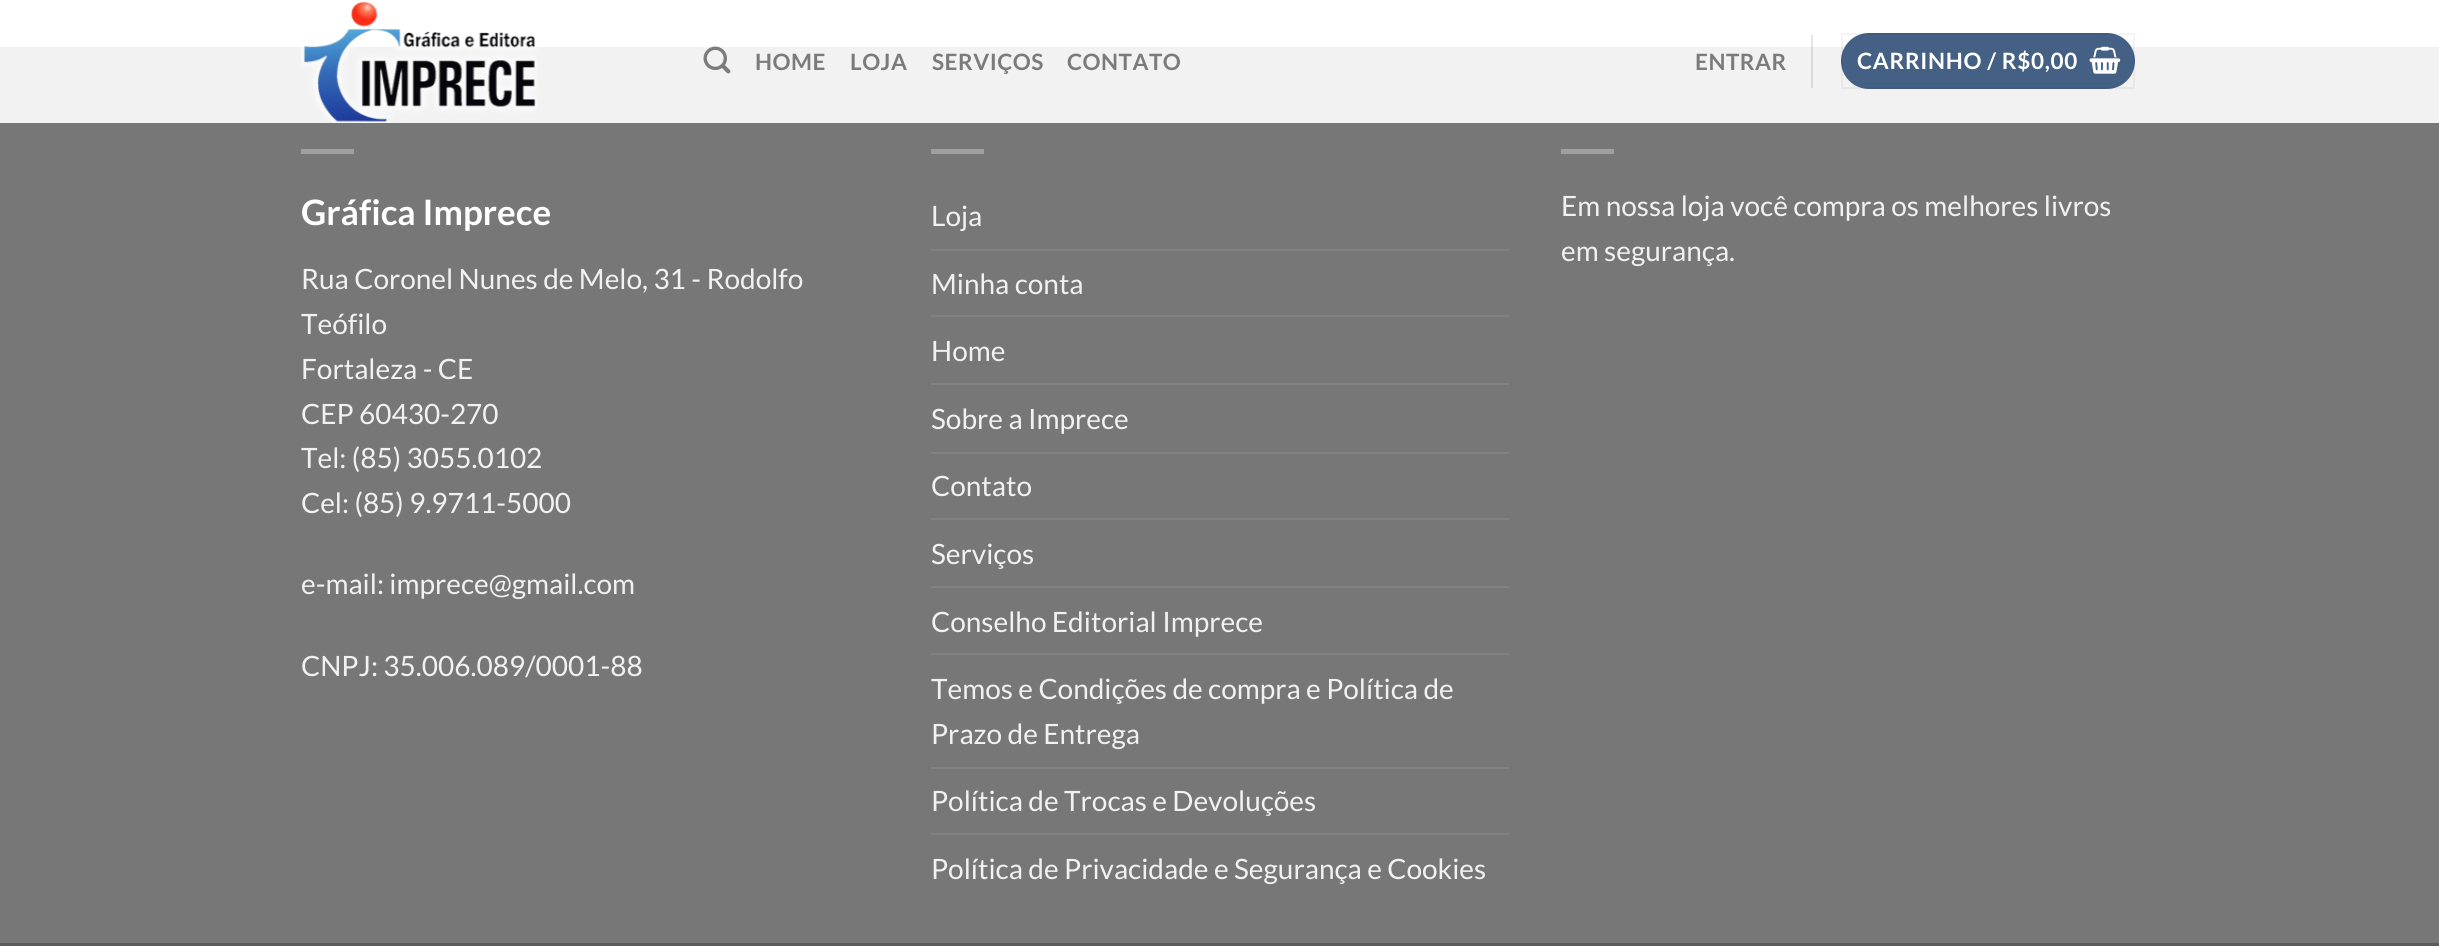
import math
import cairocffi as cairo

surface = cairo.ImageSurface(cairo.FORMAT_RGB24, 2439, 946)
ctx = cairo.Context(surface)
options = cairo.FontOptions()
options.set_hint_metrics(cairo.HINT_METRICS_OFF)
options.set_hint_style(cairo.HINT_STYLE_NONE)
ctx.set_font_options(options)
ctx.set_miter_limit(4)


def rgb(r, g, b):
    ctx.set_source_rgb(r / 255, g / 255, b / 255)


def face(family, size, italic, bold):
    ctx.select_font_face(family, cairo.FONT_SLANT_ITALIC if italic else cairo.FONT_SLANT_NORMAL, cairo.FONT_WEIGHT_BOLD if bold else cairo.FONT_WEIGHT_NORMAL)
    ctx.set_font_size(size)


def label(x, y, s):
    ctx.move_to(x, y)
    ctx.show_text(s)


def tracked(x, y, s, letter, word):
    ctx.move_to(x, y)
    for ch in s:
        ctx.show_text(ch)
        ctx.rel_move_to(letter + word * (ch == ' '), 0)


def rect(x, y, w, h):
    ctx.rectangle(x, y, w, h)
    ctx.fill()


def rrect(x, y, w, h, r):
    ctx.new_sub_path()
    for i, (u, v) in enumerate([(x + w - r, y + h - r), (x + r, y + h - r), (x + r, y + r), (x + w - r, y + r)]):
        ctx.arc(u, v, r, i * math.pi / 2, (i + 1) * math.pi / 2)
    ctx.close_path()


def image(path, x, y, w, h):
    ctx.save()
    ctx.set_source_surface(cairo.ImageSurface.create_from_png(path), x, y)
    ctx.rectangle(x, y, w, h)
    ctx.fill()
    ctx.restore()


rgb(255, 255, 255)
ctx.paint()
rgb(119, 119, 119)
rect(0, 49, 2439, 894)
rgb(113, 113, 113)
rect(0, 47, 2439, 2)
ctx.set_source_rgba(1, 1, 1, 0.9)
rect(0, 47, 2439, 76)
image('image0.png', 301, 1, 237, 122)
image('image1.png', 703, 46, 28, 28)
face('Lato', 22.5, 0, 1)
rgb(123, 123, 123)
tracked(755, 70, 'HOME', 0.5, 0)
tracked(850, 70, 'LOJA', 0.5, 0)
tracked(932, 70, 'SERVIÇOS', 0.5, 0)
tracked(1067, 70, 'CONTATO', 0.5, 0)
tracked(1695, 70, 'ENTRAR', 0.5, 0)
ctx.set_source_rgba(0, 0, 0, 0.1)
rect(1811, 35, 2, 53)
rgb(68, 96, 132)
rrect(1841, 33, 294, 56, 28)
ctx.fill()
ctx.rectangle(1842, 34, 292, 54)
ctx.set_source_rgba(0, 0, 0, 0.05)
ctx.stroke()
rgb(255, 255, 255)
tracked(1857, 69, 'CARRINHO / R$0,00', 0.7, 0)
image('image2.png', 2089, 46, 32, 28)
rgb(160, 160, 160)
rect(301, 149, 53, 5)
face('Lato', 35, 0, 1)
rgb(255, 255, 255)
label(301, 225, 'Gráfica Imprece')
face('Lato', 28, 0, 0)
rgb(241, 241, 241)
label(301, 289, 'Rua Coronel Nunes de Melo, 31 - Rodolfo')
label(301, 334, 'Teófilo')
label(301, 379, 'Fortaleza - CE')
label(301, 424, 'CEP 60430-270')
label(301, 468, 'Tel: (85) 3055.0102')
label(301, 513, 'Cel: (85) 9.9711-5000')
label(301, 594, 'e-mail: imprece@gmail.com')
label(301, 676, 'CNPJ: 35.006.089/0001-88')
rgb(160, 160, 160)
rect(931, 149, 53, 5)
rgb(241, 241, 241)
label(931, 226, 'Loja')
rgb(130, 130, 130)
rect(931, 249, 578, 2)
rgb(241, 241, 241)
label(931, 294, 'Minha conta')
rgb(130, 130, 130)
rect(931, 315, 578, 2)
rgb(241, 241, 241)
label(931, 361, 'Home')
rgb(130, 130, 130)
rect(931, 383, 578, 2)
rgb(241, 241, 241)
label(931, 429, 'Sobre a Imprece')
rgb(130, 130, 130)
rect(931, 452, 578, 2)
rgb(241, 241, 241)
label(931, 496, 'Contato')
rgb(130, 130, 130)
rect(931, 518, 578, 2)
rgb(241, 241, 241)
label(931, 564, 'Serviços')
rgb(130, 130, 130)
rect(931, 586, 578, 2)
rgb(241, 241, 241)
label(931, 632, 'Conselho Editorial Imprece')
rgb(130, 130, 130)
rect(931, 653, 578, 2)
rgb(241, 241, 241)
label(931, 699, 'Temos e Condições de compra e Política de')
label(931, 744, 'Prazo de Entrega')
rgb(130, 130, 130)
rect(931, 767, 578, 2)
rgb(241, 241, 241)
label(931, 811, 'Política de Trocas e Devoluções')
rgb(130, 130, 130)
rect(931, 833, 578, 2)
rgb(241, 241, 241)
label(931, 879, 'Política de Privacidade e Segurança e Cookies')
rgb(160, 160, 160)
rect(1561, 149, 53, 5)
rgb(241, 241, 241)
label(1561, 216, 'Em nossa loja você compra os melhores livros')
label(1561, 261, 'em segurança.')
rgb(91, 91, 91)
rect(0, 943, 2439, 3)
surface.write_to_png('render.png')
